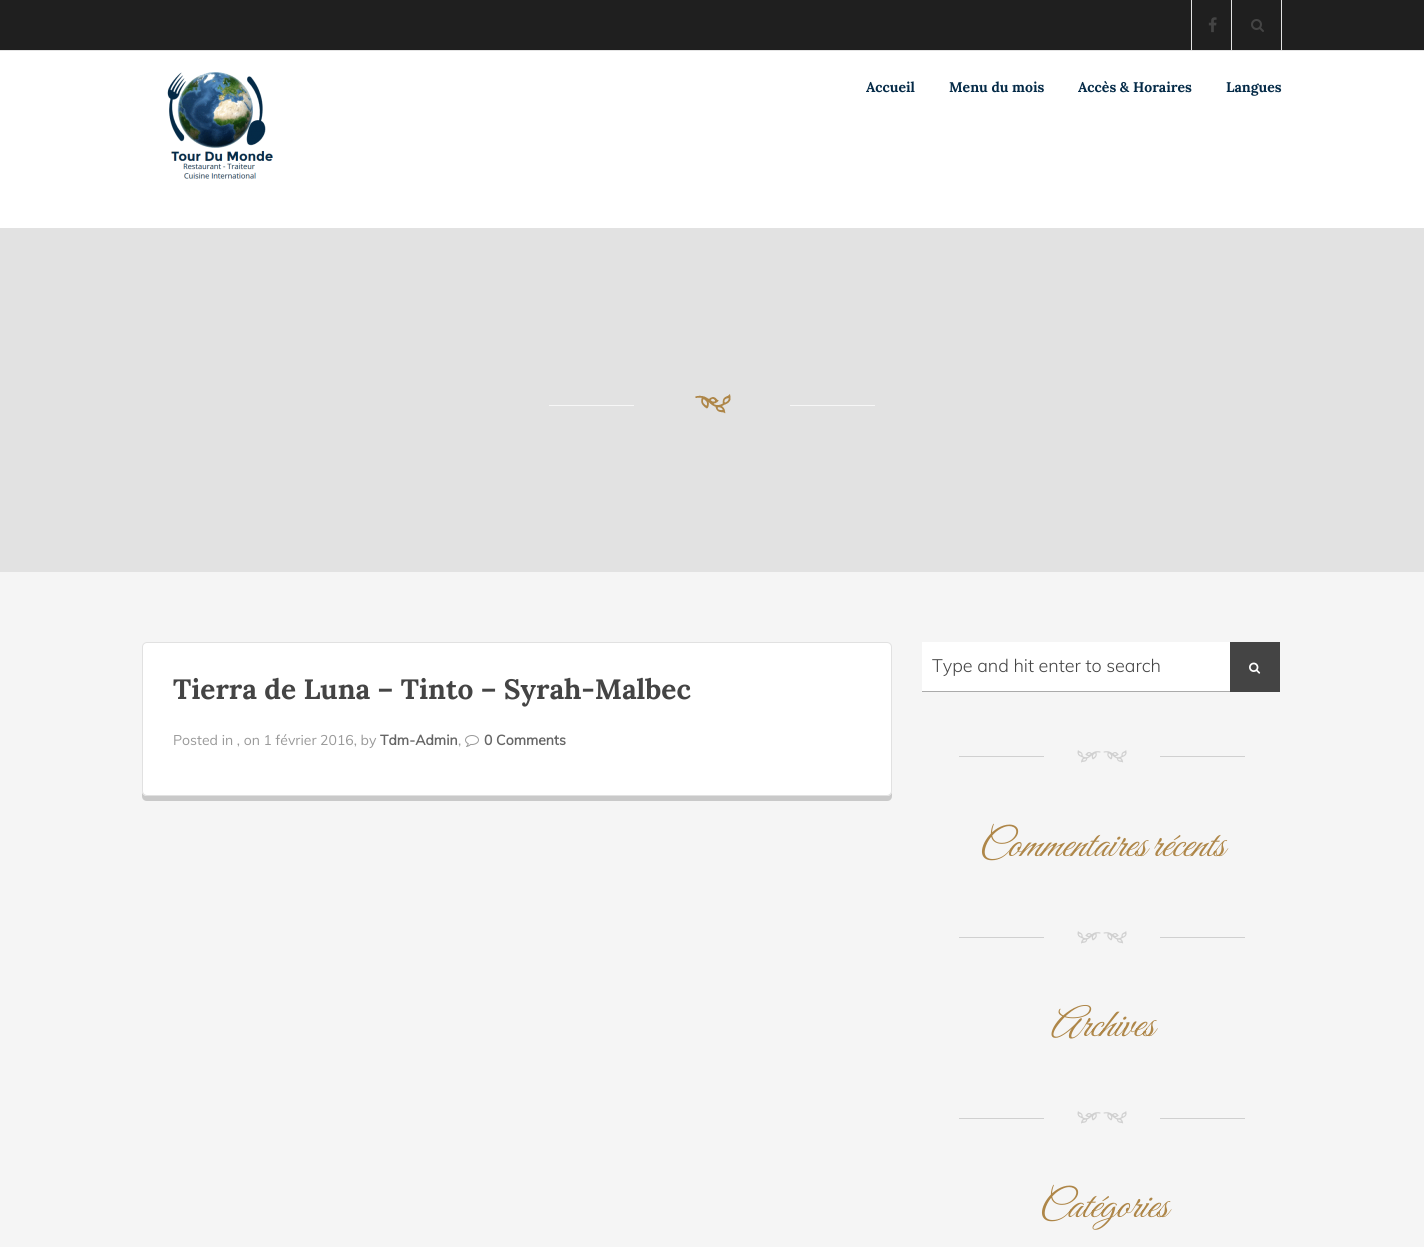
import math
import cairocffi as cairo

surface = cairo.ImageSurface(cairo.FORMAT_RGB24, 1424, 1247)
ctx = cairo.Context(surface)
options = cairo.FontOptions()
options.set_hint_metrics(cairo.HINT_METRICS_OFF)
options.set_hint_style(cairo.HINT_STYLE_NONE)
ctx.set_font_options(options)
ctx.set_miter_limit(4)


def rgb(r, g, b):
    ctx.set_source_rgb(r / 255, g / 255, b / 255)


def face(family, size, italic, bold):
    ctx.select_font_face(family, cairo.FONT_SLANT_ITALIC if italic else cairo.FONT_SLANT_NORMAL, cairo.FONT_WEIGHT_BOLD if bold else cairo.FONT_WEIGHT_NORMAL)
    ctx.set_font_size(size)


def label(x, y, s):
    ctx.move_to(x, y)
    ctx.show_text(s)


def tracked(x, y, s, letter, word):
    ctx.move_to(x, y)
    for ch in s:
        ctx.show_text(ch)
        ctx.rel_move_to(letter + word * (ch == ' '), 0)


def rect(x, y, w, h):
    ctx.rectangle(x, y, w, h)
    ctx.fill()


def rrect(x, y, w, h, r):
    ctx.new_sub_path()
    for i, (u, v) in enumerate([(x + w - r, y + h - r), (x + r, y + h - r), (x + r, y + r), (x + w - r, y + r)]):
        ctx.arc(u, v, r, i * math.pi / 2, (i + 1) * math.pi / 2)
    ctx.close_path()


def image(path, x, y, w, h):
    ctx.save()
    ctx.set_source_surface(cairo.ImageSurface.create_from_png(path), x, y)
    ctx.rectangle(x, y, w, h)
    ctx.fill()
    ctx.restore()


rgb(255, 255, 255)
ctx.paint()
rgb(31, 31, 31)
rect(0, 0, 1424, 50)
rgb(228, 228, 228)
rect(0, 50, 1424, 1)
rect(1231, 0, 1, 50)
rect(1191, 0, 1, 50)
image('image0.png', 1208, 17, 9, 16)
rect(1281, 0, 1, 50)
image('image1.png', 1251, 19, 13, 13)
image('image2.png', 167, 72, 106, 107)
face('Lora', 14, 0, 1)
rgb(4, 42, 71)
label(866, 92, 'Accueil')
label(949, 92, 'Menu du mois')
label(1078, 92, 'Accès & Horaires')
label(1226, 92, 'Langues')
rgb(245, 245, 245)
rect(0, 572, 1424, 675)
rgb(226, 226, 226)
rect(0, 228, 1424, 344)
rgb(247, 247, 247)
rect(549, 405, 85, 1)
image('image3.png', 695, 394, 36, 20)
rect(790, 405, 85, 1)
rgb(201, 201, 201)
ctx.new_path()
ctx.move_to(142, 791)
ctx.line_to(142, 796)
ctx.curve_to(142, 799, 144, 801, 147, 801)
ctx.line_to(887, 801)
ctx.curve_to(890, 801, 892, 799, 892, 796)
ctx.line_to(892, 791)
ctx.curve_to(892, 794, 890, 796, 887, 796)
ctx.line_to(147, 796)
ctx.curve_to(144, 796, 142, 794, 142, 791)
ctx.close_path()
ctx.fill()
rgb(255, 255, 255)
rrect(142.5, 642.5, 749, 153, 4.5)
ctx.fill_preserve()
rgb(225, 225, 225)
ctx.set_line_width(1)
ctx.stroke()
face('Lora', 28, 0, 1)
rgb(68, 68, 68)
label(173, 699, 'Tierra de Luna – Tinto – Syrah-Malbec')
face('Muli', 14, 0, 0)
rgb(153, 153, 153)
label(173, 745, 'Posted in , on 1 février 2016, by')
face('Muli', 14, 0, 1)
rgb(102, 102, 102)
label(380, 745, 'Tdm-Admin')
face('Muli', 14, 0, 0)
rgb(153, 153, 153)
label(458, 745, ',')
image('image4.png', 465, 735, 14, 12)
face('Muli', 14, 0, 1)
rgb(102, 102, 102)
label(484, 745, '0 Comments')
rgb(255, 255, 255)
rect(922, 642, 308, 49)
rgb(170, 170, 170)
rect(922, 691, 308, 1)
face('Muli Light', 18, 0, 0)
rgb(68, 68, 68)
label(932, 672, 'Type and hit enter to search')
rect(1230, 642, 50, 50)
image('image5.png', 1249, 662, 12, 12)
rgb(208, 208, 208)
rect(959, 756, 85, 1)
face('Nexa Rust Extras', 30, 0, 0)
label(1076, 765, 'NM')
rect(1160, 756, 85, 1)
face('Great Vibes', 40, 1, 0)
rgb(174, 134, 72)
tracked(978, 856, 'Commentaires récents', 0, -2)
rgb(208, 208, 208)
rect(959, 937, 85, 1)
face('Nexa Rust Extras', 30, 0, 0)
label(1076, 946, 'NM')
rect(1160, 937, 85, 1)
face('Great Vibes', 40, 1, 0)
rgb(174, 134, 72)
label(1050, 1036, 'Archives')
rgb(208, 208, 208)
rect(959, 1118, 85, 1)
face('Nexa Rust Extras', 30, 0, 0)
label(1076, 1126, 'NM')
rect(1160, 1118, 85, 1)
face('Great Vibes', 40, 1, 0)
rgb(174, 134, 72)
label(1038, 1217, 'Catégories')
surface.write_to_png('render.png')
